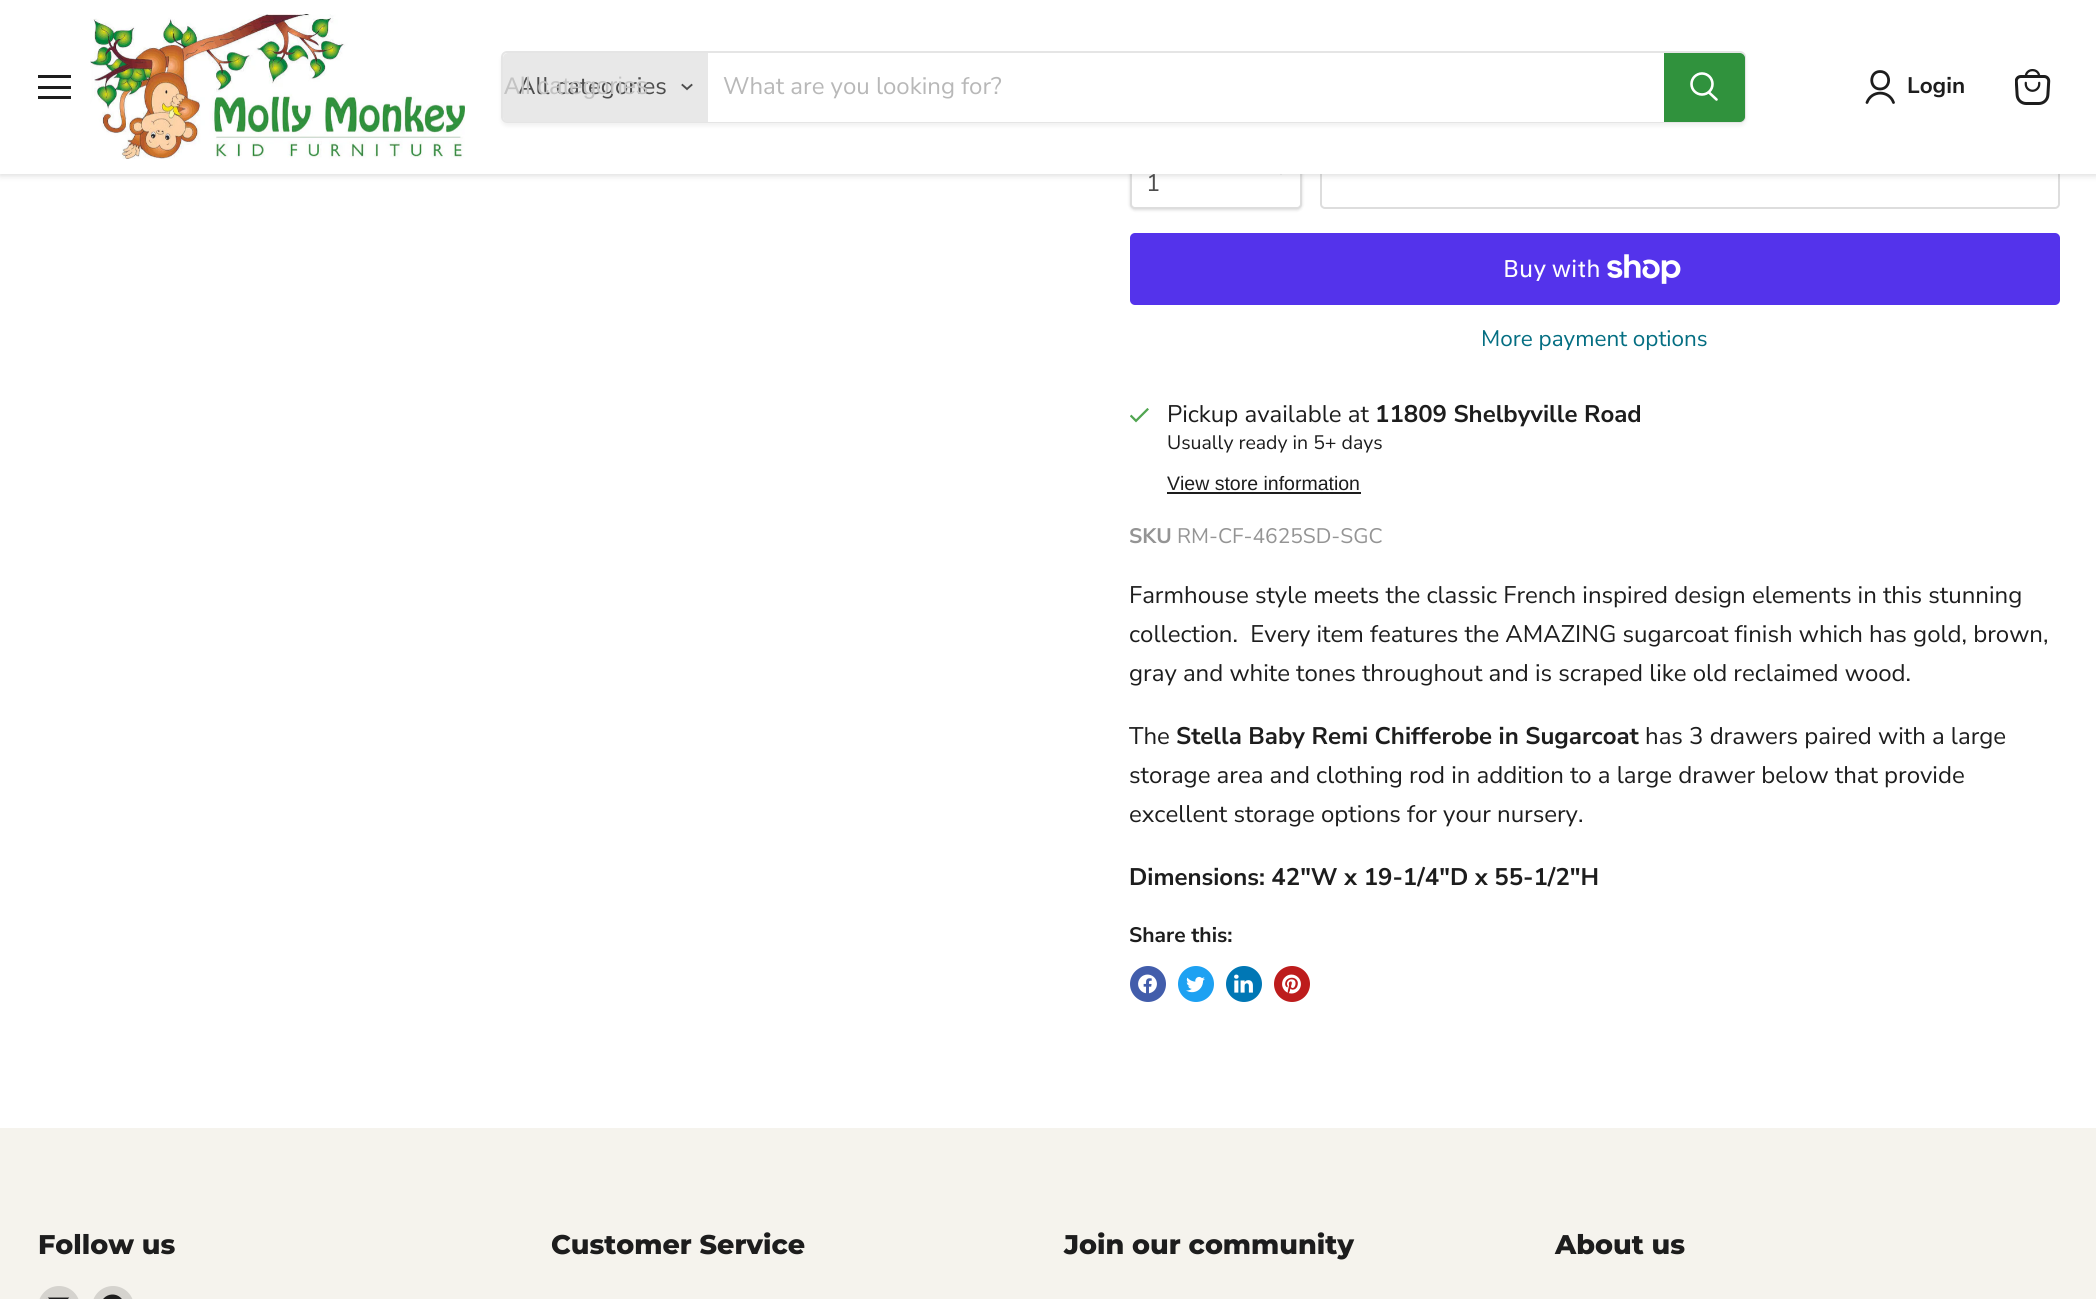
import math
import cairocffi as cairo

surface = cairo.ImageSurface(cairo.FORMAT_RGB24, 2096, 1299)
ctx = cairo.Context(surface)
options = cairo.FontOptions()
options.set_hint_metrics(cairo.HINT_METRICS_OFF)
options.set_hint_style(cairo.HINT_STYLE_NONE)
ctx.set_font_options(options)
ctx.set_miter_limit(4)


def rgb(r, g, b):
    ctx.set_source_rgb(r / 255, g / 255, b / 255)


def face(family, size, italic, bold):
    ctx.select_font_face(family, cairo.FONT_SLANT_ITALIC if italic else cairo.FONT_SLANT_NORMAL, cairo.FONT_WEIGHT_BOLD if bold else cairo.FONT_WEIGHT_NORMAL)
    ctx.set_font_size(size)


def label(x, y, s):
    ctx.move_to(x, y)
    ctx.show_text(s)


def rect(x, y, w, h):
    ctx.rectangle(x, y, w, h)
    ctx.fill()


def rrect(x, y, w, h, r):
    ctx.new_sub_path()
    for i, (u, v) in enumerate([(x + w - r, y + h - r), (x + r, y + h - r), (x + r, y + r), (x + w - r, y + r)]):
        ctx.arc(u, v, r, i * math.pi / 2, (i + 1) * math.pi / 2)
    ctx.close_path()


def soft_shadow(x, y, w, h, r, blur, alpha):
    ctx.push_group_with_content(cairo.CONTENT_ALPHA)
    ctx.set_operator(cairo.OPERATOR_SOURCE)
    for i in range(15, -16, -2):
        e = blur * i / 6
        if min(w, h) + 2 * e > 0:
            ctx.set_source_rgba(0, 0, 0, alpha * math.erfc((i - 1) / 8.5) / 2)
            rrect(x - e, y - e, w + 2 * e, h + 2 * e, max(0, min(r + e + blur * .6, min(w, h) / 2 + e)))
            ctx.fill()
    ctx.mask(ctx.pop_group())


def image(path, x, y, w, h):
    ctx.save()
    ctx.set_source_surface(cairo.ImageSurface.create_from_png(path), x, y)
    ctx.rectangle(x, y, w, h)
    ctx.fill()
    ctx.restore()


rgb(255, 255, 255)
ctx.paint()
rgb(0, 0, 0)
soft_shadow(1130, 134, 172, 76, 5, 1.5, 0.15)
rgb(255, 255, 255)
rrect(1131, 133, 170, 75, 4)
ctx.fill_preserve()
rgb(221, 221, 221)
ctx.stroke()
ctx.new_path()
ctx.move_to(1281, 173)
ctx.line_to(1285.5, 169)
ctx.move_to(1281, 173)
ctx.line_to(1276.5, 169)
rgb(77, 77, 77)
ctx.set_line_width(1.9)
ctx.set_line_cap(cairo.LINE_CAP_SQUARE)
ctx.stroke()
rrect(1321, 133, 738, 75, 4)
rgb(221, 221, 221)
ctx.set_line_width(2)
ctx.set_line_cap(cairo.LINE_CAP_BUTT)
ctx.stroke()
rgb(128, 128, 128)
soft_shadow(0, 2, 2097, 174, 0, 3, 0.25)
rgb(255, 255, 255)
rect(0, 0, 2096, 174)
rgb(29, 29, 29)
rect(38, 75, 33, 3)
rect(38, 86, 33, 3)
rect(38, 96, 33, 3)
image('image0.png', 90, 14, 375, 145)
ctx.save()
ctx.set_fill_rule(cairo.FILL_RULE_EVEN_ODD)
ctx.new_path()
ctx.move_to(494, 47)
ctx.line_to(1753, 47)
ctx.line_to(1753, 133)
ctx.line_to(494, 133)
ctx.close_path()
ctx.move_to(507, 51)
ctx.line_to(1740, 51)
ctx.curve_to(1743.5, 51, 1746, 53.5, 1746, 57)
ctx.line_to(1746, 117)
ctx.curve_to(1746, 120.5, 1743.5, 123, 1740, 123)
ctx.line_to(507, 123)
ctx.curve_to(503.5, 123, 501, 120.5, 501, 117)
ctx.line_to(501, 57)
ctx.curve_to(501, 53.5, 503.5, 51, 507, 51)
ctx.close_path()
ctx.clip()
rgb(128, 128, 128)
soft_shadow(501, 54, 1245, 72, 6, 2, 0.11)
ctx.restore()
rrect(502, 52, 1243, 70, 5)
ctx.set_source_rgba(0.502, 0.502, 0.502, 0.2)
ctx.stroke()
rgb(232, 232, 232)
ctx.new_path()
ctx.move_to(508, 53)
ctx.line_to(708, 53)
ctx.line_to(708, 122)
ctx.line_to(508, 122)
ctx.curve_to(505, 122, 503, 120, 503, 117)
ctx.line_to(503, 58)
ctx.curve_to(503, 55, 505, 53, 508, 53)
ctx.close_path()
ctx.fill()
face('Nunito Sans', 24, 0, 0)
rgb(77, 77, 77)
label(518, 94, 'All categories')
face('Liberation Sans', 24, 0, 0)
rgb(195, 195, 195)
label(504, 94, 'All categories')
ctx.new_path()
ctx.move_to(687, 89)
ctx.line_to(691.5, 85)
ctx.move_to(687, 89)
ctx.line_to(682.5, 85)
rgb(77, 77, 77)
ctx.set_line_width(1.9)
ctx.set_line_cap(cairo.LINE_CAP_SQUARE)
ctx.stroke()
rgb(255, 255, 255)
rect(708, 121, 956, 1)
face('Nunito Sans', 24, 0, 0)
rgb(184, 184, 184)
label(723, 94, 'What are you looking for?')
rgb(48, 146, 61)
ctx.new_path()
ctx.move_to(1665, 54)
ctx.line_to(1740, 54)
ctx.curve_to(1742, 54, 1744, 56, 1744, 58)
ctx.line_to(1744, 117)
ctx.curve_to(1744, 119, 1742, 121, 1740, 121)
ctx.line_to(1665, 121)
ctx.close_path()
ctx.fill_preserve()
ctx.set_line_width(2)
ctx.set_line_cap(cairo.LINE_CAP_BUTT)
ctx.stroke()
ctx.new_path()
ctx.move_to(1716.5, 99.5)
ctx.line_to(1709, 92.5)
rgb(255, 255, 255)
ctx.set_line_width(2.6)
ctx.set_line_cap(cairo.LINE_CAP_ROUND)
ctx.stroke()
ctx.arc(1702, 84, 10.5, 0, 2 * math.pi)
ctx.set_line_cap(cairo.LINE_CAP_BUTT)
ctx.stroke()
ctx.new_path()
ctx.move_to(1880, 89)
ctx.curve_to(1891.5, 89, 1891.5, 71.5, 1880, 71.5)
ctx.curve_to(1869, 71.5, 1869, 89, 1880, 89)
ctx.close_path()
ctx.move_to(1893.5, 102.5)
ctx.curve_to(1889, 90, 1871.5, 90, 1867, 102.5)
rgb(29, 29, 29)
ctx.set_line_width(2.8)
ctx.set_line_cap(cairo.LINE_CAP_ROUND)
ctx.set_line_join(cairo.LINE_JOIN_ROUND)
ctx.stroke()
face('Nunito Sans', 22.5, 0, 1)
label(1907, 93, 'Login')
image('image1.png', 2015, 69, 36, 36)
face('Nunito Sans', 24, 0, 0)
rgb(77, 77, 77)
label(1146, 191, '1')
rgb(84, 51, 235)
rrect(1130, 233, 930, 72, 5)
ctx.fill()
face('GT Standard', 24, 0, 0)
rgb(255, 255, 255)
label(1503, 277, 'Buy with')
image('image2.png', 1607, 254, 74, 30)
face('Nunito Sans', 22.5, 0, 0)
rgb(4, 110, 130)
label(1481, 346, 'More payment options')
image('image3.png', 1130, 408, 19, 15)
face('Nunito Sans', 24, 0, 0)
rgb(29, 29, 29)
label(1167, 422, 'Pickup available at')
face('Nunito Sans', 24, 0, 1)
label(1375, 422, '11809 Shelbyville Road')
face('Nunito Sans', 19.5, 0, 0)
label(1167, 449, 'Usually ready in 5+ days')
face('Liberation Sans', 19.5, 0, 0)
label(1167, 490, 'View store information')
rect(1167, 492, 194, 2)
face('Nunito Sans', 21, 0, 1)
rgb(148, 148, 148)
label(1129, 543, 'SKU')
face('Nunito Sans', 21, 0, 0)
label(1177, 543, 'RM-CF-4625SD-SGC')
face('Nunito Sans', 24, 0, 0)
rgb(29, 29, 29)
label(1129, 603, 'Farmhouse style meets the classic French inspired design elements in this stunning')
label(1129, 642, 'collection.  Every item features the AMAZING sugarcoat finish which has gold, brown,')
label(1129, 681, 'gray and white tones throughout and is scraped like old reclaimed wood.')
label(1129, 744, 'The')
face('Nunito Sans', 24, 0, 1)
label(1176, 744, 'Stella Baby Remi Chifferobe in Sugarcoat')
face('Nunito Sans', 24, 0, 0)
label(1645, 744, 'has 3 drawers paired with a large')
label(1129, 783, 'storage area and clothing rod in addition to a large drawer below that provide')
label(1129, 822, 'excellent storage options for your nursery.')
face('Nunito Sans', 24, 0, 1)
label(1129, 885, 'Dimensions: 42"W x 19-1/4"D x 55-1/2"H')
face('Nunito Sans', 21, 0, 1)
label(1129, 942, 'Share this:')
rgb(66, 93, 171)
ctx.new_path()
ctx.arc(1148, 984, 18, 0, 2 * math.pi)
ctx.fill()
image('image4.png', 1138, 974, 19, 20)
rgb(29, 161, 242)
ctx.arc(1196, 984, 18, 0, 2 * math.pi)
ctx.fill()
image('image5.png', 1186, 976, 19, 17)
rgb(0, 119, 181)
ctx.arc(1244, 984, 18, 0, 2 * math.pi)
ctx.fill()
image('image6.png', 1234, 974, 19, 19)
rgb(189, 28, 28)
ctx.arc(1292, 984, 18, 0, 2 * math.pi)
ctx.fill()
image('image7.png', 1282, 974, 19, 20)
rgb(245, 243, 237)
rect(0, 1128, 2096, 171)
face('Montserrat ExtraBold', 27, 0, 0)
rgb(29, 29, 29)
label(38, 1254, 'Follow us')
rgb(213, 211, 206)
rrect(38, 1286, 42, 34, 21)
ctx.fill()
image('image8.png', 46, 1297, 25, 2)
rrect(92, 1286, 42, 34, 21)
ctx.fill()
image('image9.png', 103, 1294, 19, 5)
rgb(29, 29, 29)
label(551, 1254, 'Customer Service')
label(1064, 1254, 'Join our community')
label(1555, 1254, 'About us')
surface.write_to_png('render.png')
